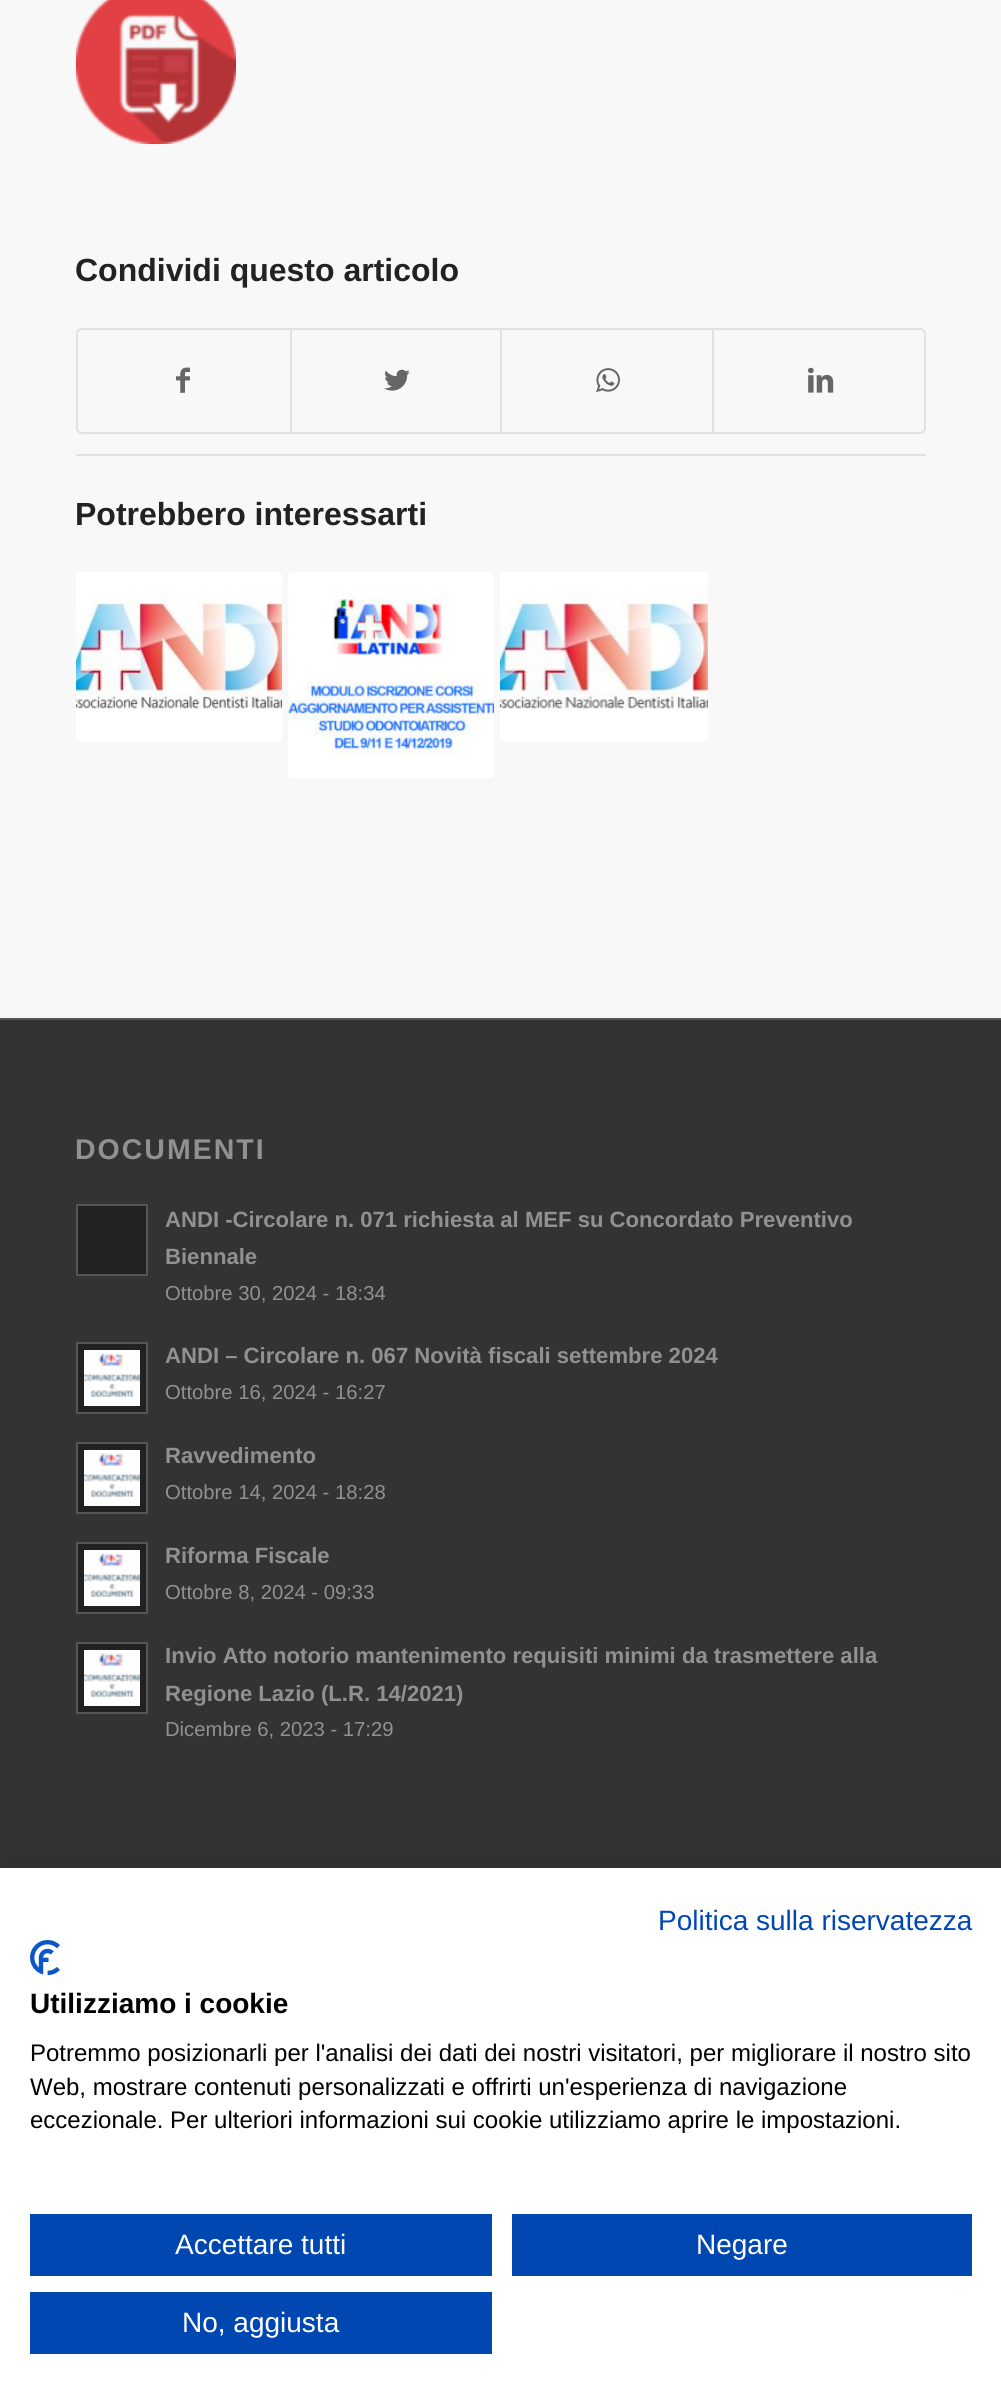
import math
import cairocffi as cairo

surface = cairo.ImageSurface(cairo.FORMAT_RGB24, 1001, 2407)
ctx = cairo.Context(surface)
options = cairo.FontOptions()
options.set_hint_metrics(cairo.HINT_METRICS_OFF)
options.set_hint_style(cairo.HINT_STYLE_NONE)
ctx.set_font_options(options)
ctx.set_miter_limit(4)


def rgb(r, g, b):
    ctx.set_source_rgb(r / 255, g / 255, b / 255)


def face(family, size, italic, bold):
    ctx.select_font_face(family, cairo.FONT_SLANT_ITALIC if italic else cairo.FONT_SLANT_NORMAL, cairo.FONT_WEIGHT_BOLD if bold else cairo.FONT_WEIGHT_NORMAL)
    ctx.set_font_size(size)


def label(x, y, s):
    ctx.move_to(x, y)
    ctx.show_text(s)


def tracked(x, y, s, letter, word):
    ctx.move_to(x, y)
    for ch in s:
        ctx.show_text(ch)
        ctx.rel_move_to(letter + word * (ch == ' '), 0)


def rect(x, y, w, h):
    ctx.rectangle(x, y, w, h)
    ctx.fill()


def rrect(x, y, w, h, r):
    ctx.new_sub_path()
    for i, (u, v) in enumerate([(x + w - r, y + h - r), (x + r, y + h - r), (x + r, y + r), (x + w - r, y + r)]):
        ctx.arc(u, v, r, i * math.pi / 2, (i + 1) * math.pi / 2)
    ctx.close_path()


def soft_shadow(x, y, w, h, r, blur, alpha):
    ctx.push_group_with_content(cairo.CONTENT_ALPHA)
    ctx.set_operator(cairo.OPERATOR_SOURCE)
    for i in range(15, -16, -2):
        e = blur * i / 6
        if min(w, h) + 2 * e > 0:
            ctx.set_source_rgba(0, 0, 0, alpha * math.erfc((i - 1) / 8.5) / 2)
            rrect(x - e, y - e, w + 2 * e, h + 2 * e, max(0, min(r + e + blur * .6, min(w, h) / 2 + e)))
            ctx.fill()
    ctx.mask(ctx.pop_group())


def image(path, x, y, w, h):
    ctx.save()
    ctx.set_source_surface(cairo.ImageSurface.create_from_png(path), x, y)
    ctx.rectangle(x, y, w, h)
    ctx.fill()
    ctx.restore()


rgb(248, 248, 248)
ctx.paint()
image('image0.png', 76, 0, 160, 144)
face('Liberation Sans', 32, 0, 1)
rgb(34, 34, 34)
label(75, 281, 'Condividi questo articolo')
rrect(77, 329, 848, 104, 5)
rgb(225, 225, 225)
ctx.stroke()
image('image1.png', 176, 367, 14, 26)
rect(290, 330, 2, 102)
image('image2.png', 384, 369, 26, 22)
rect(500, 330, 2, 102)
image('image3.png', 596, 368, 24, 25)
rect(712, 330, 2, 102)
image('image4.png', 808, 367, 26, 26)
rect(76, 454, 850, 2)
rgb(34, 34, 34)
label(75, 525, 'Potrebbero interessarti')
image('image5.png', 76, 572, 206, 170)
image('image6.png', 288, 572, 206, 206)
image('image7.png', 500, 572, 208, 170)
rgb(51, 51, 51)
rect(0, 1020, 1001, 848)
rgb(85, 85, 85)
rect(0, 1018, 1001, 2)
face('Liberation Sans', 28.5, 0, 1)
rgb(145, 145, 145)
tracked(75, 1159, 'DOCUMENTI', 2, 0)
rgb(34, 34, 34)
ctx.rectangle(77, 1205, 70, 70)
ctx.fill_preserve()
rgb(85, 85, 85)
ctx.stroke()
face('Liberation Sans', 22.1, 0, 1)
rgb(145, 145, 145)
label(165, 1227, 'ANDI -Circolare n. 071 richiesta al MEF su Concordato Preventivo')
label(165, 1264, 'Biennale')
face('Liberation Sans', 20.25, 0, 0)
label(165, 1300, 'Ottobre 30, 2024 - 18:34')
rgb(34, 34, 34)
ctx.rectangle(77, 1343, 70, 70)
ctx.fill_preserve()
rgb(85, 85, 85)
ctx.stroke()
image('image8.png', 84, 1350, 56, 56)
face('Liberation Sans', 22.1, 0, 1)
rgb(145, 145, 145)
label(165, 1363, 'ANDI – Circolare n. 067 Novità fiscali settembre 2024')
face('Liberation Sans', 20.25, 0, 0)
label(165, 1399, 'Ottobre 16, 2024 - 16:27')
rgb(34, 34, 34)
ctx.rectangle(77, 1443, 70, 70)
ctx.fill_preserve()
rgb(85, 85, 85)
ctx.stroke()
image('image8.png', 84, 1450, 56, 56)
face('Liberation Sans', 22.1, 0, 1)
rgb(145, 145, 145)
label(165, 1463, 'Ravvedimento')
face('Liberation Sans', 20.25, 0, 0)
label(165, 1499, 'Ottobre 14, 2024 - 18:28')
rgb(34, 34, 34)
ctx.rectangle(77, 1543, 70, 70)
ctx.fill_preserve()
rgb(85, 85, 85)
ctx.stroke()
image('image8.png', 84, 1550, 56, 56)
face('Liberation Sans', 22.1, 0, 1)
rgb(145, 145, 145)
label(165, 1563, 'Riforma Fiscale')
face('Liberation Sans', 20.25, 0, 0)
label(165, 1599, 'Ottobre 8, 2024 - 09:33')
rgb(34, 34, 34)
ctx.rectangle(77, 1643, 70, 70)
ctx.fill_preserve()
rgb(85, 85, 85)
ctx.stroke()
image('image9.png', 84, 1650, 56, 56)
face('Liberation Sans', 22.1, 0, 1)
rgb(145, 145, 145)
label(165, 1663, 'Invio Atto notorio mantenimento requisiti minimi da trasmettere alla')
label(165, 1701, 'Regione Lazio (L.R. 14/2021)')
face('Liberation Sans', 20.25, 0, 0)
label(165, 1736, 'Dicembre 6, 2023 - 17:29')
rgb(0, 0, 0)
soft_shadow(0, 1868, 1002, 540, 0, 24, 0.1)
rgb(255, 255, 255)
rect(0, 1868, 1001, 539)
face('Liberation Sans', 28, 0, 0)
rgb(0, 71, 178)
label(658, 1930, 'Politica sulla riservatezza')
image('image10.png', 30, 1940, 30, 36)
face('Liberation Sans', 28, 0, 1)
rgb(0, 0, 0)
label(30, 2013, 'Utilizziamo i cookie')
face('Liberation Sans', 24, 0, 0)
label(30, 2061, 'Potremmo posizionarli per l\'analisi dei dati dei nostri visitatori, per migliorare il nostro sito')
label(30, 2095, 'Web, mostrare contenuti personalizzati e offrirti un\'esperienza di navigazione')
label(30, 2128, 'eccezionale. Per ulteriori informazioni sui cookie utilizziamo aprire le impostazioni.')
rgb(0, 71, 178)
rect(30, 2214, 462, 62)
face('Liberation Sans', 28, 0, 0)
rgb(255, 255, 255)
label(175, 2254, 'Accettare tutti')
rgb(0, 71, 178)
rect(512, 2214, 460, 62)
rgb(255, 255, 255)
label(696, 2254, 'Negare')
rgb(0, 71, 178)
rect(30, 2292, 462, 62)
rgb(255, 255, 255)
label(182, 2332, 'No, aggiusta')
surface.write_to_png('render.png')
